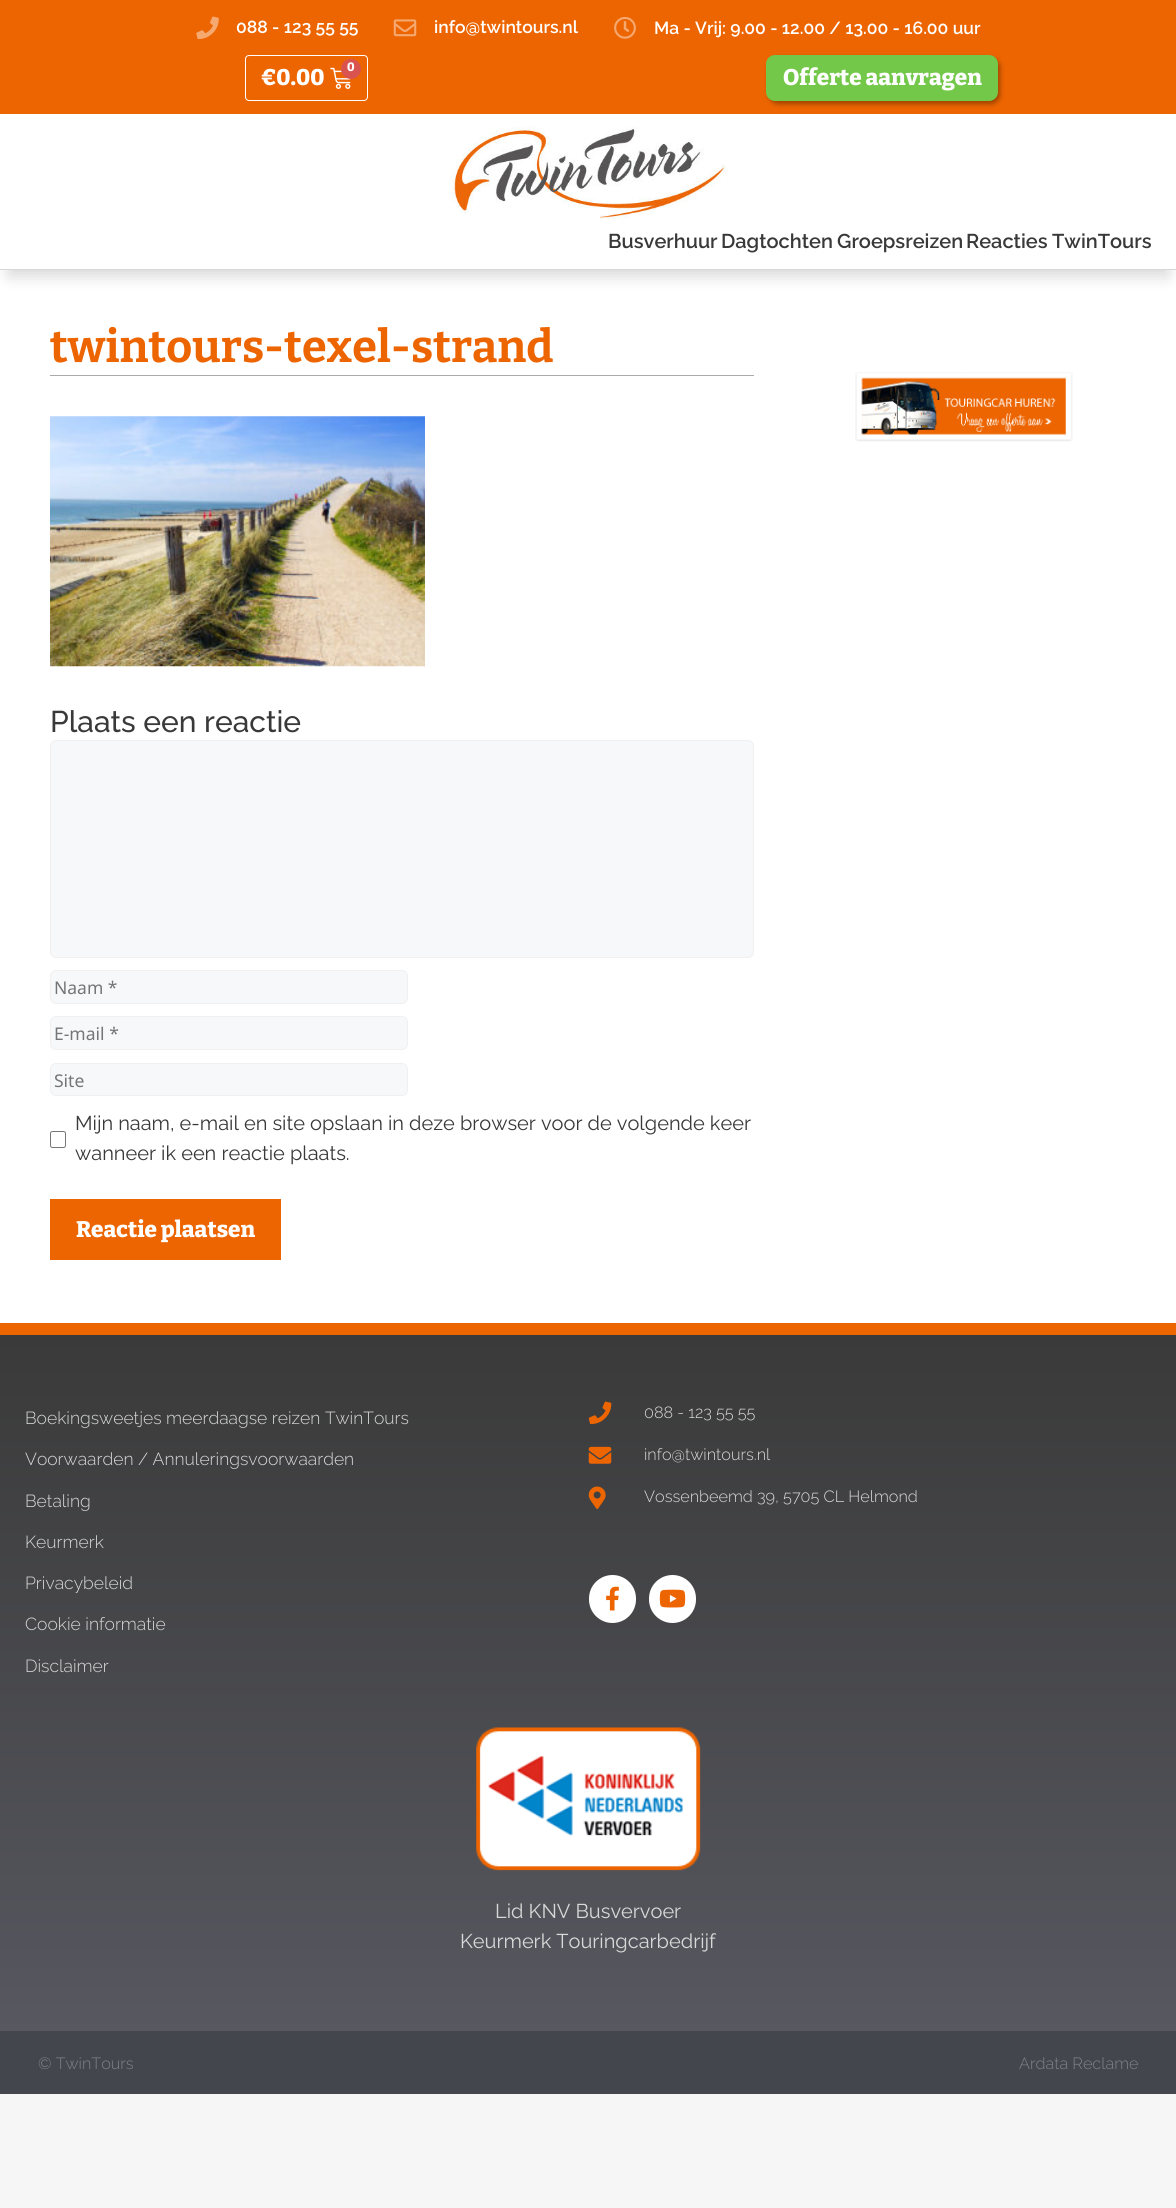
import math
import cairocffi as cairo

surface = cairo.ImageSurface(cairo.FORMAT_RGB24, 1176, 2208)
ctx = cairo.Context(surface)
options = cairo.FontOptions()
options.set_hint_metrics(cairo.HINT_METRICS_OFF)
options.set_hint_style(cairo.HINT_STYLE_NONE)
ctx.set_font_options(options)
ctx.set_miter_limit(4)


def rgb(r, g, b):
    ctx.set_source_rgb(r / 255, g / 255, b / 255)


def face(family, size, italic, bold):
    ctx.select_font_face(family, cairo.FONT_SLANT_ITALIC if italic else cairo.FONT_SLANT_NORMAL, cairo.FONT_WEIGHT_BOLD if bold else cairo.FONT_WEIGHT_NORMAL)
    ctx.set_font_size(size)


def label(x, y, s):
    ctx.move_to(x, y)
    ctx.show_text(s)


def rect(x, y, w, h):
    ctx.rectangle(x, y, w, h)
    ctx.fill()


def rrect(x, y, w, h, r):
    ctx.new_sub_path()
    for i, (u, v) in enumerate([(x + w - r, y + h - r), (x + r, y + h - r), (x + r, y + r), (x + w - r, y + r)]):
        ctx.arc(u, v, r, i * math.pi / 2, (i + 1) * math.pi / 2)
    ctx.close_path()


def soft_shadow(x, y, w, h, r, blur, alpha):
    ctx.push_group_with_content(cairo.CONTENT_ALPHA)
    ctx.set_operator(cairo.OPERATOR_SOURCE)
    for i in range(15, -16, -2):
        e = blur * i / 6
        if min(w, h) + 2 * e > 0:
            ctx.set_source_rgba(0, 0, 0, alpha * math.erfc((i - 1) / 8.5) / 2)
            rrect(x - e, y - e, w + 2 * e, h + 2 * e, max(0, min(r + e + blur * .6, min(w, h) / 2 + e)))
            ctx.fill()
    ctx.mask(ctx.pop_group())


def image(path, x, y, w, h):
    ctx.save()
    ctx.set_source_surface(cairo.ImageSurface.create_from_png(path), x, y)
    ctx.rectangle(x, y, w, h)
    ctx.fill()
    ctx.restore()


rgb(246, 246, 246)
ctx.paint()
rgb(255, 255, 255)
rect(0, 270, 1176, 1053)
rgb(0, 0, 0)
soft_shadow(9, 138, 1159, 138, 0, 8, 0.16)
rgb(237, 101, 1)
rect(0, 0, 1176, 114)
image('image0.png', 196, 16, 23, 23)
face('Raleway SemiBold', 17.5, 0, 0)
rgb(255, 255, 255)
label(236, 33, '088 - 123 55 55')
image('image1.png', 393, 19, 24, 18)
label(434, 33, 'info@twintours.nl')
image('image2.png', 614, 17, 22, 22)
label(654, 34, 'Ma - Vrij: 9.00 - 12.00 / 13.00 - 16.00 uur')
rrect(245.5, 55.5, 122, 45, 3.5)
ctx.set_line_width(1)
ctx.stroke()
image('image3.png', 330, 67, 22, 22)
rgb(217, 83, 79)
ctx.arc(351, 69, 10, 0, 2 * math.pi)
ctx.fill()
face('Bitter ExtraBold', 12, 0, 0)
rgb(255, 255, 255)
label(347, 71, '0')
face('Bitter ExtraBold', 22.5, 0, 0)
label(261, 85, '€0.00')
rgb(2, 1, 1)
soft_shadow(769, 58, 231, 46, 9, 2.5, 0.35)
rgb(115, 200, 73)
rrect(766, 55, 232, 46, 9)
ctx.fill()
rgb(255, 255, 255)
label(783, 85, 'Offerte aanvragen')
rect(0, 114, 1176, 155)
rgb(216, 216, 216)
rect(0, 269, 1176, 1)
image('image4.png', 451, 126, 276, 93)
face('Raleway SemiBold', 20, 0, 0)
rgb(57, 57, 57)
label(608, 248, 'Busverhuur')
label(721, 248, 'Dagtochten')
label(837, 248, 'Groepsreizen')
label(966, 248, 'Reacties')
label(1052, 248, 'TwinTours')
rgb(170, 170, 170)
rect(50, 375, 704, 1)
face('Bitter', 45, 0, 1)
rgb(237, 101, 1)
label(50, 362, 'twintours-texel-strand')
image('image5.png', 50, 416, 375, 251)
face('Raleway Medium', 30, 0, 0)
rgb(57, 57, 57)
label(50, 732, 'Plaats een reactie')
rgb(247, 248, 249)
rrect(50.5, 740.5, 703, 217, 5.5)
ctx.fill_preserve()
rgb(240, 240, 240)
ctx.stroke()
rgb(247, 248, 249)
rrect(50.5, 970.5, 357, 33, 5.5)
ctx.fill_preserve()
rgb(240, 240, 240)
ctx.stroke()
face('Noto Sans', 17.5, 0, 0)
rgb(117, 117, 117)
label(54, 994, 'Naam *')
rgb(247, 248, 249)
rrect(50.5, 1016.5, 357, 33, 5.5)
ctx.fill_preserve()
rgb(240, 240, 240)
ctx.stroke()
rgb(117, 117, 117)
label(54, 1040, 'E-mail *')
rgb(247, 248, 249)
rrect(50.5, 1063.5, 357, 32, 5.5)
ctx.fill_preserve()
rgb(240, 240, 240)
ctx.stroke()
rgb(117, 117, 117)
label(54, 1087, 'Site')
rrect(50.5, 1131.5, 15, 16, 2)
rgb(118, 118, 118)
ctx.stroke()
face('Raleway', 20, 0, 0)
rgb(57, 57, 57)
label(75, 1130, 'Mijn naam, e-mail en site opslaan in deze browser voor de volgende keer')
label(75, 1160, 'wanneer ik een reactie plaats.')
rgb(237, 101, 1)
rect(50, 1199, 231, 61)
face('Bitter ExtraBold', 22.5, 0, 0)
rgb(255, 255, 255)
label(76, 1237, 'Reactie plaatsen')
image('image6.png', 855, 372, 218, 70)
gradient = cairo.LinearGradient(588, 2031, 588, 1335)
gradient.add_color_stop_rgba(0, 0.341, 0.345, 0.376, 1)
gradient.add_color_stop_rgba(1, 0.227, 0.227, 0.227, 1)
ctx.set_source(gradient)
rect(0, 1335, 1176, 696)
rgb(237, 101, 1)
rect(0, 1323, 1176, 12)
face('Raleway Light', 17.5, 0, 0)
rgb(216, 216, 216)
label(25, 1424, 'Boekingsweetjes meerdaagse reizen TwinTours')
label(25, 1465, 'Voorwaarden / Annuleringsvoorwaarden')
label(25, 1507, 'Betaling')
label(25, 1548, 'Keurmerk')
label(25, 1589, 'Privacybeleid')
label(25, 1630, 'Cookie informatie')
label(25, 1672, 'Disclaimer')
image('image7.png', 588, 1401, 24, 24)
face('Raleway Light', 16.25, 0, 0)
label(644, 1418, '088 - 123 55 55')
image('image8.png', 588, 1446, 24, 18)
label(644, 1460, 'info@twintours.nl')
image('image9.png', 588, 1486, 18, 23)
label(644, 1502, 'Vossenbeemd 39, 5705 CL Helmond')
rgb(255, 255, 255)
rrect(589, 1575, 47, 48, 23.5)
ctx.fill()
image('image10.png', 606, 1586, 13, 25)
rrect(649, 1575, 47, 48, 23.5)
ctx.fill()
image('image11.png', 659, 1589, 27, 19)
image('image12.png', 476, 1727, 225, 144)
face('Raleway', 20, 0, 0)
rgb(216, 216, 216)
label(495, 1918, 'Lid KNV Busvervoer')
label(460, 1948, 'Keurmerk Touringcarbedrijf')
rgb(67, 70, 76)
rect(0, 2031, 1176, 63)
face('Raleway Light', 16.25, 0, 0)
rgb(127, 129, 133)
label(38, 2069, '© TwinTours')
label(1019, 2069, 'Ardata Reclame')
surface.write_to_png('render.png')
